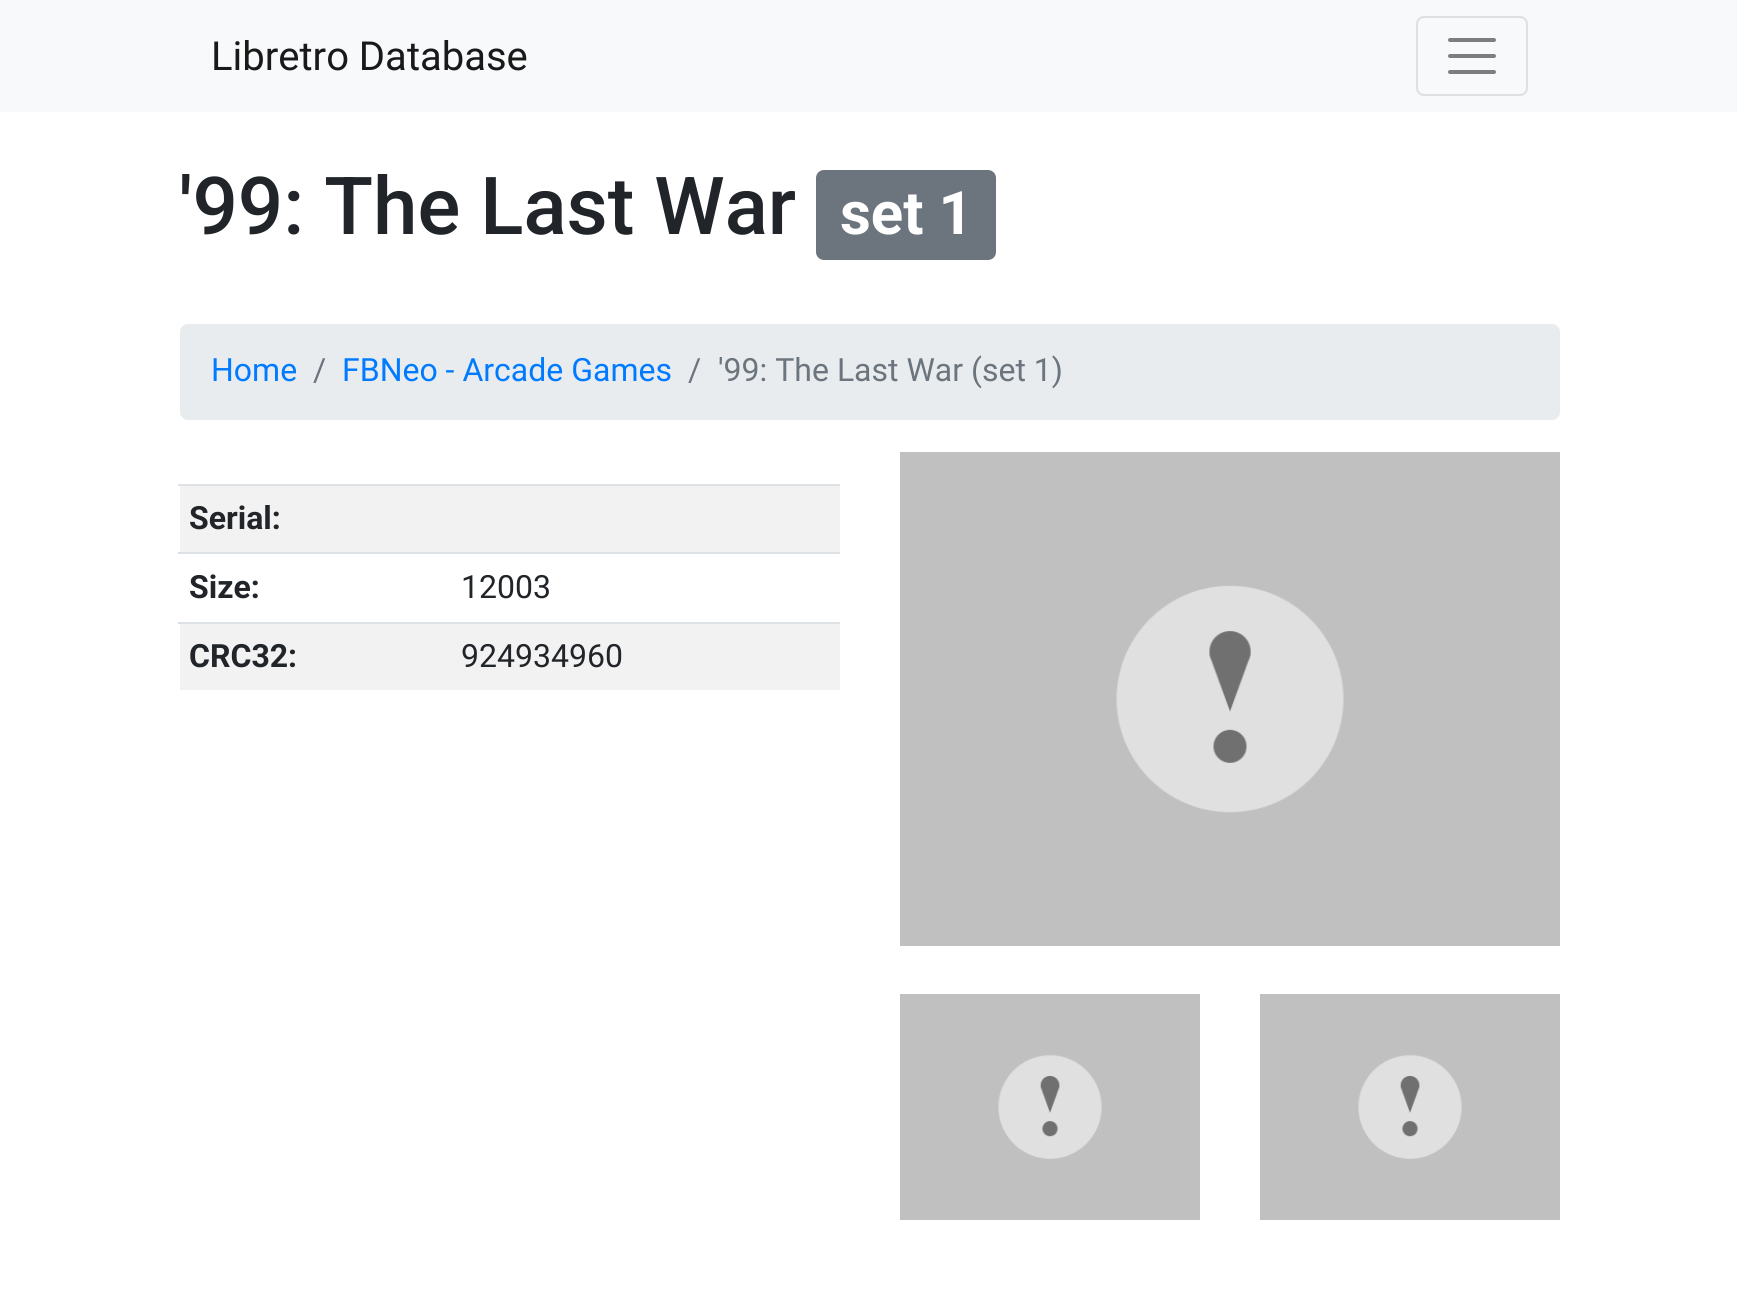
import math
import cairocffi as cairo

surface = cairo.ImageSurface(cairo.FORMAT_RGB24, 1737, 1316)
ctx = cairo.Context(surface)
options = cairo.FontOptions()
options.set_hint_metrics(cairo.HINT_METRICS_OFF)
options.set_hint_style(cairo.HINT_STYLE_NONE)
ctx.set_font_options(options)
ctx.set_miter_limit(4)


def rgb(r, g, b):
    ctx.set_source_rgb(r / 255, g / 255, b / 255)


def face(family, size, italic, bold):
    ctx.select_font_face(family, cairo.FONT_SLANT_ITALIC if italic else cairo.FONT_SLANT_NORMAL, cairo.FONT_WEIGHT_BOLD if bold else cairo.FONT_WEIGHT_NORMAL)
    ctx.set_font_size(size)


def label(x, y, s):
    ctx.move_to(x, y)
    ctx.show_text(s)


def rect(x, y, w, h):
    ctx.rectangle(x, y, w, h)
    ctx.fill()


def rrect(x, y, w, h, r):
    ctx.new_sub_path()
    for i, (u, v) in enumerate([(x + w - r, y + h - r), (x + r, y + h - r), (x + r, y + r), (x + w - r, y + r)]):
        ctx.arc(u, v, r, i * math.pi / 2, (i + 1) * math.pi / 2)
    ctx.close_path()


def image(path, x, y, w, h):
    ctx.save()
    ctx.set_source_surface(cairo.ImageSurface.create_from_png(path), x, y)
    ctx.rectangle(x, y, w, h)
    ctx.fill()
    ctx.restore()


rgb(255, 255, 255)
ctx.paint()
rgb(248, 249, 250)
rect(0, 0, 1737, 112)
face('Roboto', 40, 0, 0)
rgb(25, 25, 25)
label(211, 70, 'Libretro Database')
rrect(1417, 17, 110, 78, 7)
rgb(223, 224, 225)
ctx.stroke()
ctx.new_path()
ctx.move_to(1450, 40)
ctx.line_to(1494, 40)
ctx.move_to(1450, 56)
ctx.line_to(1494, 56)
ctx.move_to(1450, 72)
ctx.line_to(1494, 72)
rgb(124, 125, 125)
ctx.set_line_width(4)
ctx.set_line_cap(cairo.LINE_CAP_ROUND)
ctx.stroke()
face('Roboto Medium', 80, 0, 0)
rgb(33, 37, 41)
label(179, 234, '\'99: The Last War')
rgb(108, 117, 125)
rrect(816, 170, 180, 90, 8)
ctx.fill()
face('Roboto', 60, 0, 1)
rgb(255, 255, 255)
label(840, 234, 'set 1')
rgb(233, 236, 239)
rrect(180, 324, 1380, 96, 8)
ctx.fill()
face('Roboto', 32, 0, 0)
rgb(0, 123, 255)
label(211, 381, 'Home')
rgb(108, 117, 125)
label(313, 381, '/')
rgb(0, 123, 255)
label(342, 381, 'FBNeo - Arcade Games')
rgb(108, 117, 125)
label(688, 381, '/')
label(718, 381, '\'99: The Last War (set 1)')
rgb(242, 242, 242)
rect(180, 486, 660, 66)
rgb(222, 226, 230)
rect(178, 484, 662, 2)
face('Roboto', 32, 0, 1)
rgb(33, 37, 41)
label(189, 529, 'Serial:')
label(189, 598, 'Size:')
rgb(222, 226, 230)
rect(178, 552, 662, 2)
face('Roboto', 32, 0, 0)
rgb(33, 37, 41)
label(461, 598, '12003')
rgb(242, 242, 242)
rect(180, 624, 660, 66)
face('Roboto', 32, 0, 1)
rgb(33, 37, 41)
label(189, 667, 'CRC32:')
rgb(222, 226, 230)
rect(178, 622, 662, 2)
face('Roboto', 32, 0, 0)
rgb(33, 37, 41)
label(461, 667, '924934960')
image('image0.png', 900, 452, 660, 494)
image('image1.png', 900, 994, 300, 226)
image('image2.png', 1260, 994, 300, 226)
surface.write_to_png('render.png')
